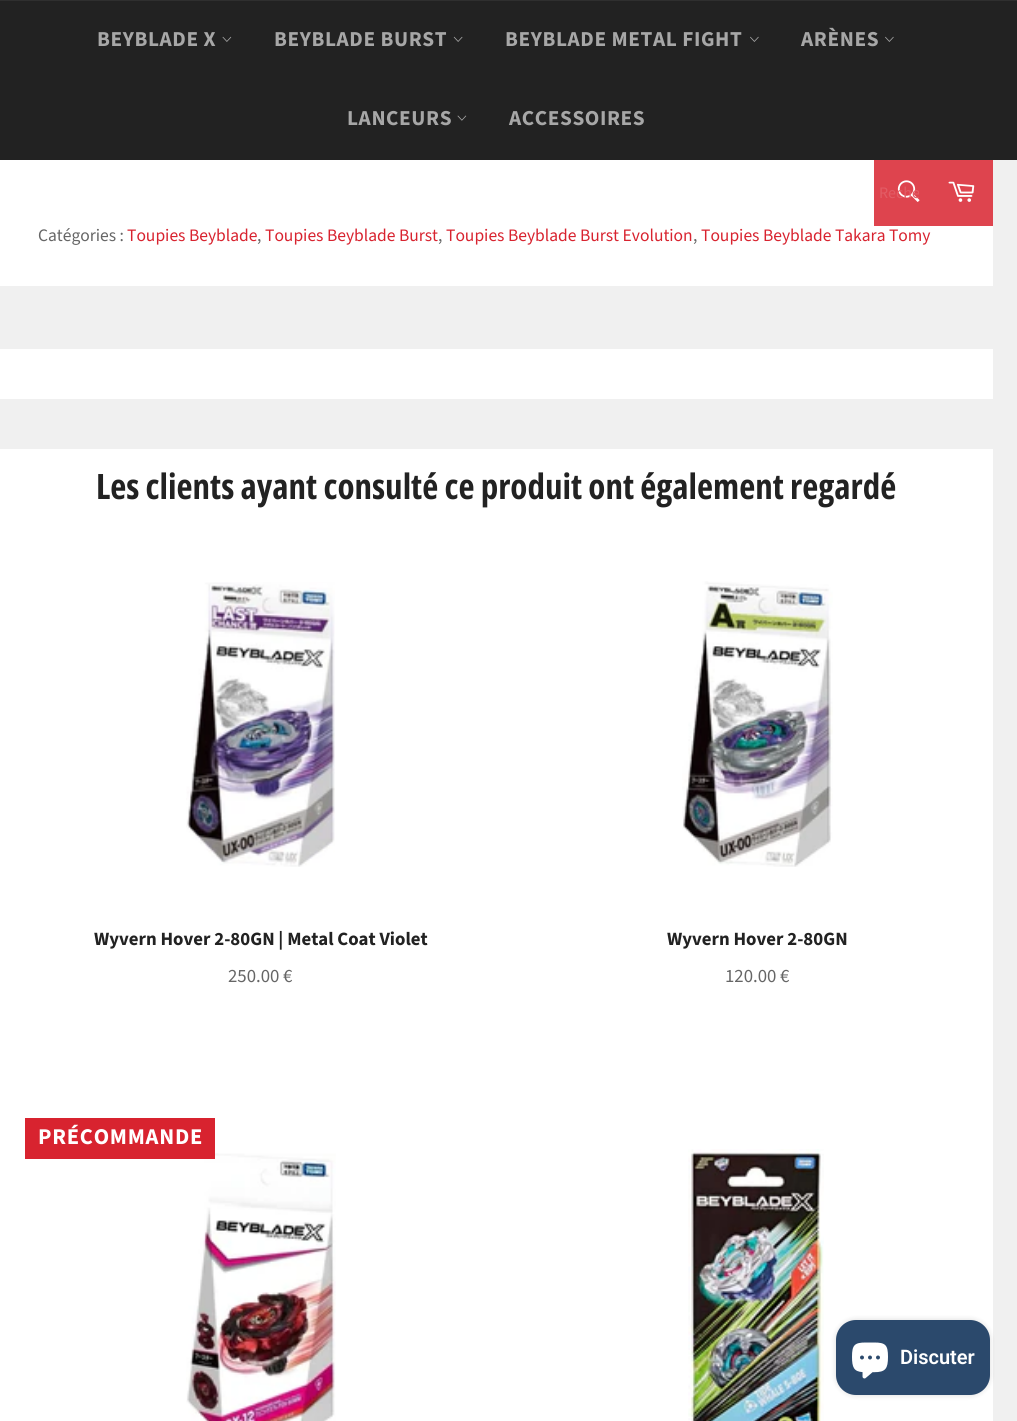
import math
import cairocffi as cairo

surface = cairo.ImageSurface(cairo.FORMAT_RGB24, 1017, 1421)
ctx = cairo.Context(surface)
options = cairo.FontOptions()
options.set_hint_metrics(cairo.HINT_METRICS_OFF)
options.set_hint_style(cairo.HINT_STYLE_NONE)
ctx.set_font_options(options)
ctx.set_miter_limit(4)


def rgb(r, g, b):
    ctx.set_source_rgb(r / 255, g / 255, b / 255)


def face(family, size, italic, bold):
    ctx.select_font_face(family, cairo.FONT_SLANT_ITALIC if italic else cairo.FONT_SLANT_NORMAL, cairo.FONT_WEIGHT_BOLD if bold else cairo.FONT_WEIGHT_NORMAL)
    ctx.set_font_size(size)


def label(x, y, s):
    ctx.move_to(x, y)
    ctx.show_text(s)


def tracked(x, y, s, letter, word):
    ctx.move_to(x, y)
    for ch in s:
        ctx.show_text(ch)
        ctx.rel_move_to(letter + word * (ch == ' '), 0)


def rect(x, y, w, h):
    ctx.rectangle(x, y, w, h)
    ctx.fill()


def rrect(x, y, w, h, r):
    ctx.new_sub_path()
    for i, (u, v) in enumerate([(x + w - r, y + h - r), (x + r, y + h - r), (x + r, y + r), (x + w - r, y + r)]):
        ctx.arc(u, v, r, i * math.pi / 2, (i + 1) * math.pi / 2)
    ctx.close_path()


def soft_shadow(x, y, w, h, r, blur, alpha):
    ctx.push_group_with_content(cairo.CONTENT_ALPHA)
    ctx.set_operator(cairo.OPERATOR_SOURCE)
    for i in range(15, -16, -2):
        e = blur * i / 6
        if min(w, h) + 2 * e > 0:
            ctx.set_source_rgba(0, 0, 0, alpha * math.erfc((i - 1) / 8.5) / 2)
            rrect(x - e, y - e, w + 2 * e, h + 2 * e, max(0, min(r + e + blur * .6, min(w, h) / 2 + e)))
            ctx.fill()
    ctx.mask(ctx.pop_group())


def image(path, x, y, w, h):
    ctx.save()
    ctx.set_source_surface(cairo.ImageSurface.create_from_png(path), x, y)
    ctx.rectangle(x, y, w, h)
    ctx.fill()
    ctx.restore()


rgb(240, 240, 240)
ctx.paint()
rgb(34, 34, 34)
rect(0, 1, 1017, 159)
rgb(47, 47, 47)
rect(0, 0, 1017, 1)
face('Source Sans Pro', 21.25, 0, 1)
rgb(167, 167, 167)
tracked(97, 46, 'BEYBLADE X', 0.6, 0)
image('image0.png', 222, 36, 10, 6)
tracked(274, 46, 'BEYBLADE BURST', 0.6, 0)
image('image1.png', 453, 36, 10, 6)
tracked(505, 46, 'BEYBLADE METAL FIGHT', 0.6, 0)
image('image2.png', 750, 36, 9, 6)
tracked(801, 46, 'ARÈNES', 0.6, 0)
image('image2.png', 885, 36, 9, 6)
tracked(347, 125, 'LANCEURS', 0.6, 0)
image('image3.png', 457, 115, 10, 6)
tracked(509, 125, 'ACCESSOIRES', 0.6, 0)
rgb(255, 255, 255)
rect(0, 160, 993, 126)
rgb(222, 68, 78)
rect(874, 160, 119, 66)
image('image4.png', 897, 180, 23, 22)
ctx.save()
ctx.rectangle(879, 181, 40, 23)
ctx.clip()
face('Source Sans Pro', 16, 0, 0)
rgb(226, 92, 101)
label(879, 198, 'Reche')
ctx.restore()
image('image5.png', 948, 181, 27, 21)
face('Source Sans Pro', 17.5, 0, 0)
rgb(102, 102, 102)
label(38, 241, 'Catégories :')
rgb(216, 35, 47)
label(127, 241, 'Toupies Beyblade')
rgb(102, 102, 102)
label(257, 241, ',')
rgb(216, 35, 47)
label(265, 241, 'Toupies Beyblade Burst')
rgb(102, 102, 102)
label(438, 241, ',')
rgb(216, 35, 47)
label(446, 241, 'Toupies Beyblade Burst Evolution')
rgb(102, 102, 102)
label(693, 241, ',')
rgb(216, 35, 47)
label(701, 241, 'Toupies Beyblade Takara Tomy')
rgb(255, 255, 255)
rect(0, 349, 993, 50)
rect(0, 449, 993, 972)
face('Open Sans Condensed', 35, 0, 1)
rgb(34, 34, 34)
label(96, 499, 'Les clients ayant consulté ce produit ont également regardé')
image('image6.png', 186, 582, 149, 285)
face('Source Sans Pro', 18.75, 0, 1)
label(94, 945, 'Wyvern Hover 2-80GN | Metal Coat Violet')
face('Source Sans Pro', 18.75, 0, 0)
rgb(102, 102, 102)
label(228, 982, '250.00 €')
image('image7.png', 682, 581, 151, 286)
face('Source Sans Pro', 18.75, 0, 1)
rgb(34, 34, 34)
label(667, 945, 'Wyvern Hover 2-80GN')
face('Source Sans Pro', 18.75, 0, 0)
rgb(102, 102, 102)
label(725, 982, '120.00 €')
image('image8.png', 186, 1153, 150, 268)
rgb(216, 35, 47)
rect(25, 1118, 190, 41)
face('Source Sans Pro', 22.5, 0, 1)
rgb(255, 255, 255)
tracked(38, 1144, 'PRÉCOMMANDE', 0.75, 0)
image('image9.png', 688, 1149, 136, 272)
rgb(0, 0, 0)
soft_shadow(836, 1320, 154, 75, 20, 3, 0.15)
rgb(43, 73, 108)
rrect(836, 1320, 154, 75, 20)
ctx.fill()
image('image10.png', 852, 1342, 36, 37)
face('Roboto SemiBold', 20, 0, 0)
rgb(255, 255, 255)
label(900, 1364, 'Discuter')
surface.write_to_png('render.png')
